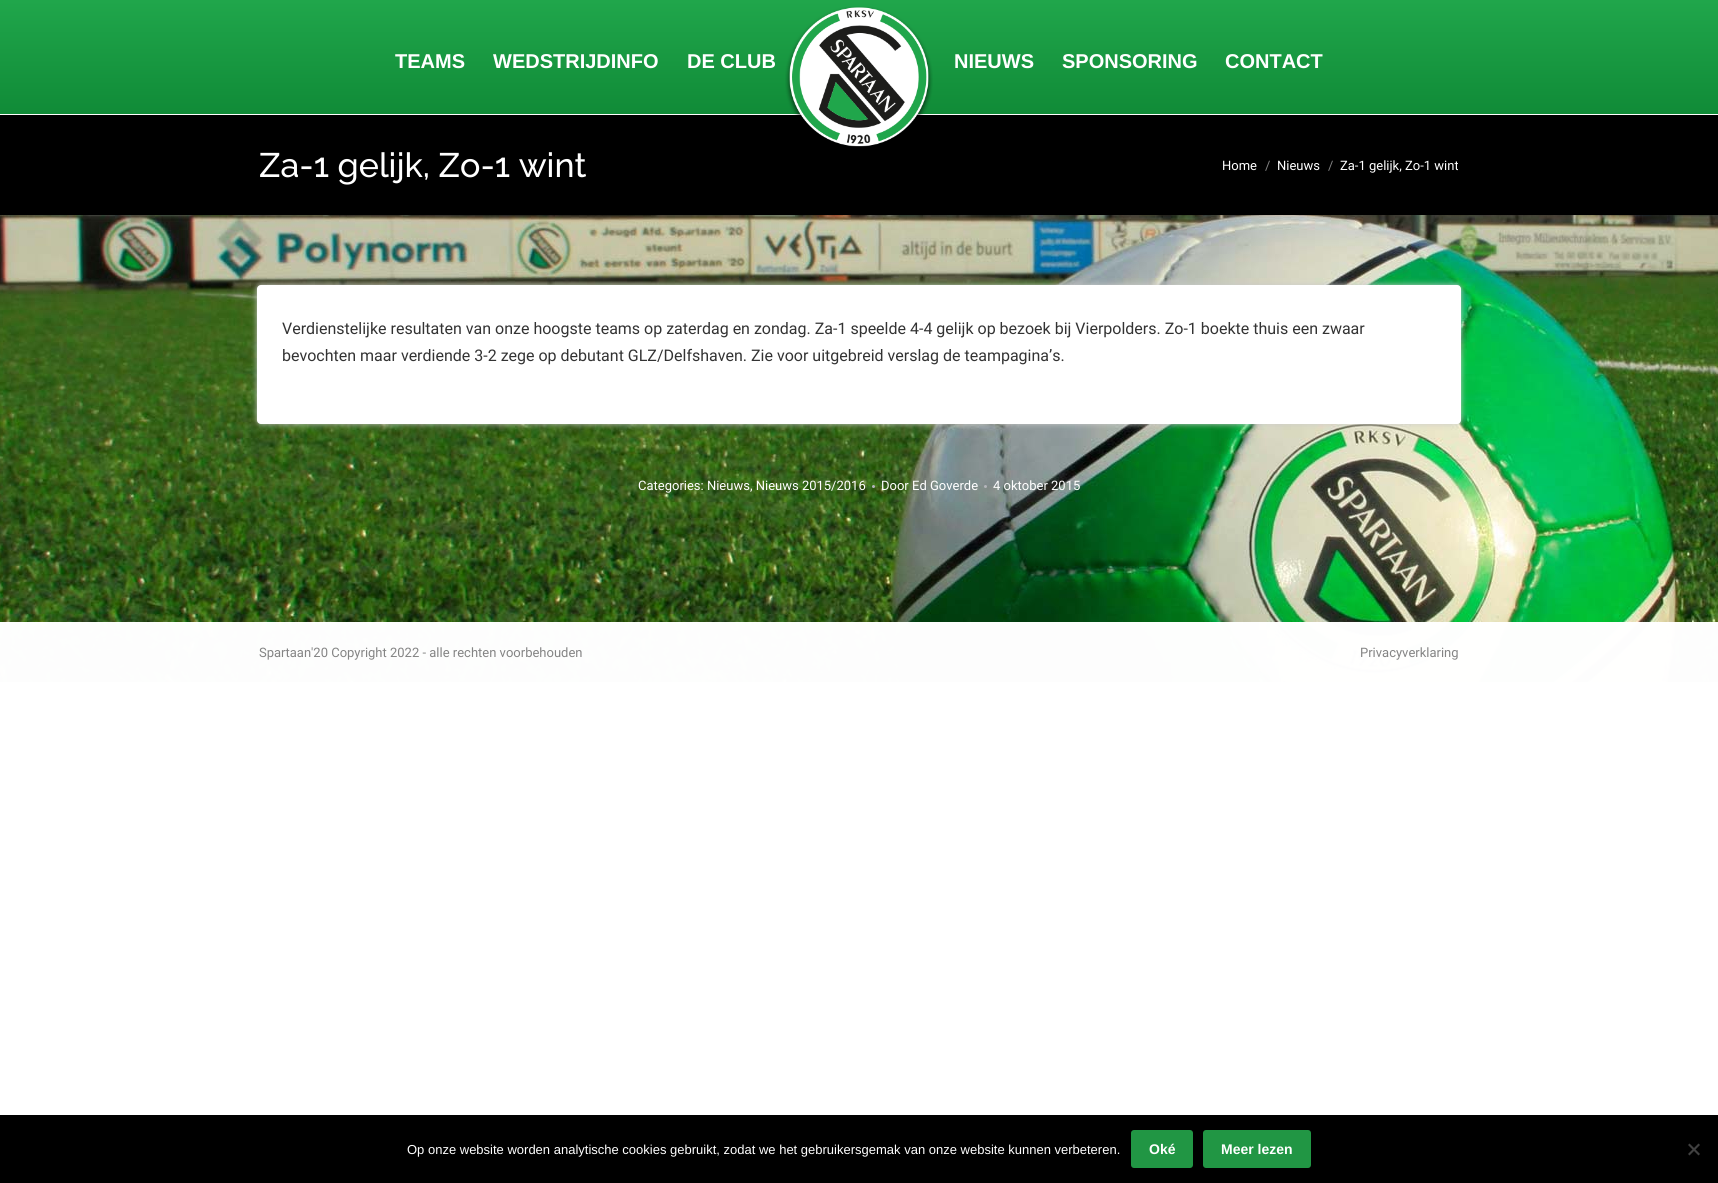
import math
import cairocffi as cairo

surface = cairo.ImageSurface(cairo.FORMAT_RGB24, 1718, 1183)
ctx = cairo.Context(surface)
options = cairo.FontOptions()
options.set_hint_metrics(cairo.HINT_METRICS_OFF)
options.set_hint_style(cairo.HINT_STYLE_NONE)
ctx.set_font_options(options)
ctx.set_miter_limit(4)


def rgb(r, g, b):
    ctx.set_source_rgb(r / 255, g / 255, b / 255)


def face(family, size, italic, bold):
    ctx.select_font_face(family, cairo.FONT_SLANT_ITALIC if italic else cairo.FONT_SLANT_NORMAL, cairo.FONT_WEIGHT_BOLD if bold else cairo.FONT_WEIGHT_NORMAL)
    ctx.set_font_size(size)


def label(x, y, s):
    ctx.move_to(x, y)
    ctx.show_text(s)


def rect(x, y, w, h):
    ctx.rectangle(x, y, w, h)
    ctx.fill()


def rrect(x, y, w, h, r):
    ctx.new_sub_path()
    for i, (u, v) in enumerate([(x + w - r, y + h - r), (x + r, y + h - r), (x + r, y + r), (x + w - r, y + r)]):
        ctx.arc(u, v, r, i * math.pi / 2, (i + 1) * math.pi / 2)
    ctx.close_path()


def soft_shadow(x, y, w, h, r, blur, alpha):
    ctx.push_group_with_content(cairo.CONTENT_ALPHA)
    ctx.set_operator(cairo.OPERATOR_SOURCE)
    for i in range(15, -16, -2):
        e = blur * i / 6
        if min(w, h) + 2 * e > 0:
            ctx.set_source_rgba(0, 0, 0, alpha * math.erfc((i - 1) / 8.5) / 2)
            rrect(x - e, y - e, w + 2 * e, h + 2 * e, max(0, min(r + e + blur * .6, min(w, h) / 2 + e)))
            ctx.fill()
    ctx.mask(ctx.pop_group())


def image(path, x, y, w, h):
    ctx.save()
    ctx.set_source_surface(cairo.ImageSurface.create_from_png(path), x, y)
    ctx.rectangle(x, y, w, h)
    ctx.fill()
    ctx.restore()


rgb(255, 255, 255)
ctx.paint()
image('image0.png', 0, 215, 1718, 467)
gradient = cairo.LinearGradient(859, 0, 859, 114)
gradient.add_color_stop_rgba(0.01, 0.125, 0.651, 0.294, 1)
gradient.add_color_stop_rgba(1, 0.063, 0.545, 0.216, 1)
ctx.set_source(gradient)
rect(0, 0, 1718, 114)
rgb(0, 0, 0)
rect(0, 115, 1718, 100)
image('image1.png', 785, 6, 148, 141)
face('Liberation Sans', 20, 0, 1)
rgb(255, 255, 255)
label(395, 68, 'TEAMS')
label(493, 68, 'WEDSTRIJDINFO')
label(687, 68, 'DE CLUB')
label(954, 68, 'NIEUWS')
label(1062, 68, 'SPONSORING')
label(1225, 68, 'CONTACT')
face('Raleway Medium', 34, 0, 0)
label(259, 177, 'Za-1 gelijk, Zo-1 wint')
face('Roboto', 13, 0, 0)
label(1222, 170, 'Home')
rgb(132, 132, 132)
label(1265, 170, '/')
rgb(255, 255, 255)
label(1277, 170, 'Nieuws')
rgb(132, 132, 132)
label(1328, 170, '/')
rgb(255, 255, 255)
label(1340, 170, 'Za-1 gelijk, Zo-1 wint')
rgb(204, 204, 204)
soft_shadow(257, 285, 1204, 139, 4, 3, 1)
rgb(255, 255, 255)
rrect(257, 285, 1204, 139, 4)
ctx.fill()
face('Roboto', 16, 0, 0)
rgb(51, 51, 51)
label(282, 334, 'Verdienstelijke resultaten van onze hoogste teams op zaterdag en zondag. Za-1 speelde 4-4 gelijk op bezoek bij Vierpolders. Zo-1 boekte thuis een zwaar')
label(282, 361, 'bevochten maar verdiende 3-2 zege op debutant GLZ/Delfshaven. Zie voor uitgebreid verslag de teampagina’s.')
face('Roboto', 13, 0, 0)
rgb(255, 255, 255)
label(638, 490, 'Categories: Nieuws, Nieuws 2015/2016')
rgb(180, 181, 187)
ctx.new_path()
ctx.arc(873.5, 486.5, 1.5, 0, 2 * math.pi)
ctx.fill()
rgb(255, 255, 255)
label(881, 490, 'Door Ed Goverde')
rgb(180, 181, 187)
ctx.new_path()
ctx.arc(985.5, 486.5, 1.5, 0, 2 * math.pi)
ctx.fill()
rgb(255, 255, 255)
label(993, 490, '4 oktober 2015')
ctx.set_source_rgba(1, 1, 1, 0.9)
rect(0, 622, 1718, 60)
rect(0, 622, 1718, 60)
rgb(132, 132, 132)
label(259, 657, 'Spartaan\'20 Copyright 2022 - alle rechten voorbehouden')
label(1360, 657, 'Privacyverklaring')
rgb(0, 0, 0)
rect(0, 1115, 1718, 68)
face('Liberation Sans', 13, 0, 0)
rgb(255, 255, 255)
label(407, 1154, 'Op onze website worden analytische cookies gebruikt, zodat we het gebruikersgemak van onze website kunnen verbeteren.')
rgb(33, 150, 68)
rrect(1131, 1130, 62, 38, 3)
ctx.fill()
face('Liberation Sans', 14, 0, 1)
rgb(255, 255, 255)
label(1149, 1154, 'Oké')
rgb(33, 150, 68)
rrect(1203, 1130, 108, 38, 3)
ctx.fill()
rgb(255, 255, 255)
label(1221, 1154, 'Meer lezen')
rgb(64, 64, 64)
ctx.new_path()
ctx.move_to(1698.5, 1143.5)
ctx.line_to(1700, 1145)
ctx.line_to(1689.5, 1155.5)
ctx.line_to(1688, 1154)
ctx.close_path()
ctx.fill()
ctx.new_path()
ctx.move_to(1688, 1145)
ctx.line_to(1689.5, 1143.5)
ctx.line_to(1700, 1154)
ctx.line_to(1698.5, 1155.5)
ctx.close_path()
ctx.fill()
surface.write_to_png('render.png')
